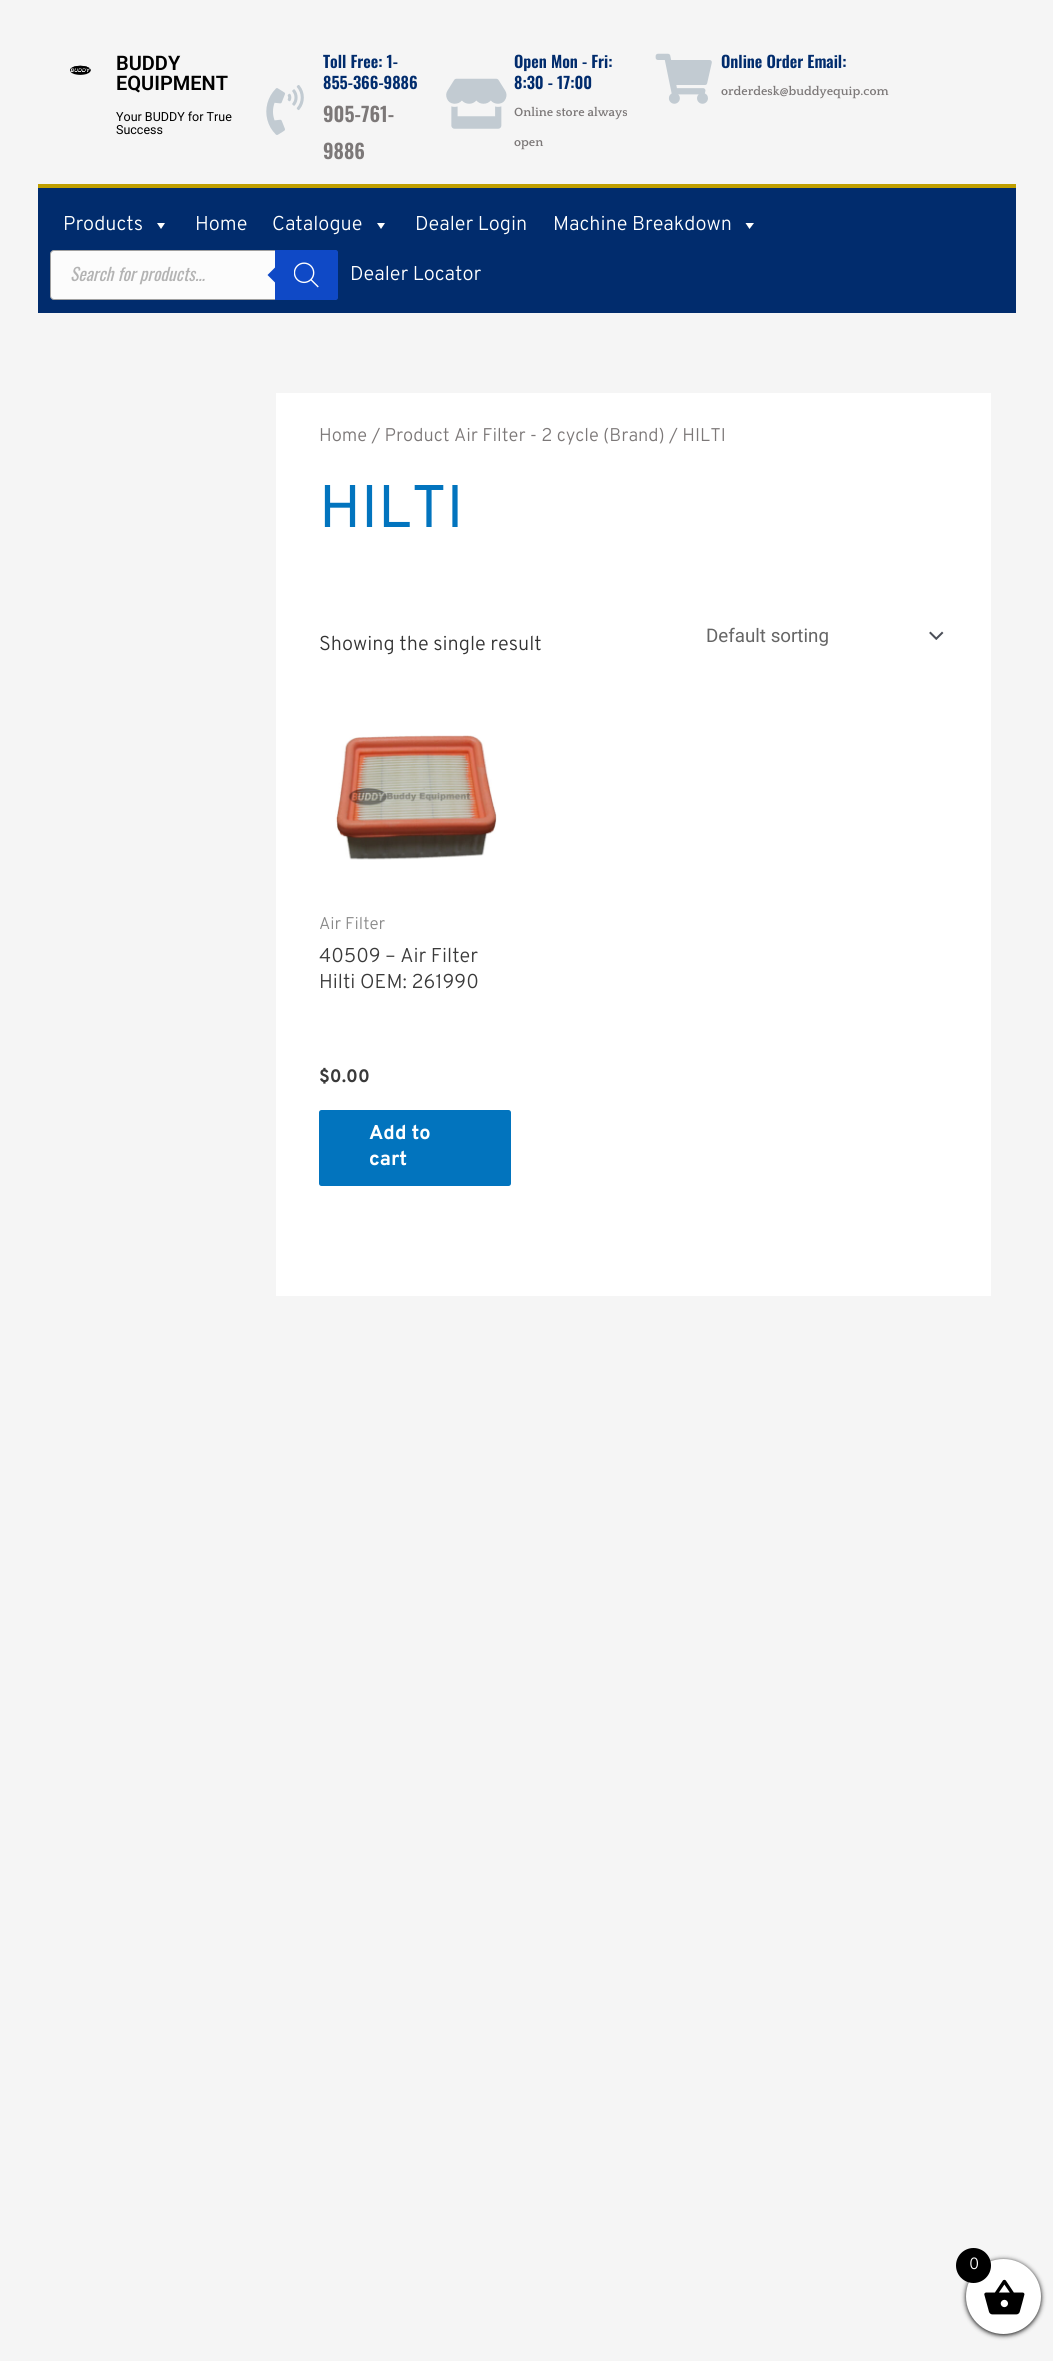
import math
import cairocffi as cairo

surface = cairo.ImageSurface(cairo.FORMAT_RGB24, 1053, 2361)
ctx = cairo.Context(surface)
options = cairo.FontOptions()
options.set_hint_metrics(cairo.HINT_METRICS_OFF)
options.set_hint_style(cairo.HINT_STYLE_NONE)
ctx.set_font_options(options)
ctx.set_miter_limit(4)


def rgb(r, g, b):
    ctx.set_source_rgb(r / 255, g / 255, b / 255)


def face(family, size, italic, bold):
    ctx.select_font_face(family, cairo.FONT_SLANT_ITALIC if italic else cairo.FONT_SLANT_NORMAL, cairo.FONT_WEIGHT_BOLD if bold else cairo.FONT_WEIGHT_NORMAL)
    ctx.set_font_size(size)


def label(x, y, s):
    ctx.move_to(x, y)
    ctx.show_text(s)


def rect(x, y, w, h):
    ctx.rectangle(x, y, w, h)
    ctx.fill()


def rrect(x, y, w, h, r):
    ctx.new_sub_path()
    for i, (u, v) in enumerate([(x + w - r, y + h - r), (x + r, y + h - r), (x + r, y + r), (x + w - r, y + r)]):
        ctx.arc(u, v, r, i * math.pi / 2, (i + 1) * math.pi / 2)
    ctx.close_path()


def soft_shadow(x, y, w, h, r, blur, alpha):
    ctx.push_group_with_content(cairo.CONTENT_ALPHA)
    ctx.set_operator(cairo.OPERATOR_SOURCE)
    for i in range(15, -16, -2):
        e = blur * i / 6
        if min(w, h) + 2 * e > 0:
            ctx.set_source_rgba(0, 0, 0, alpha * math.erfc((i - 1) / 8.5) / 2)
            rrect(x - e, y - e, w + 2 * e, h + 2 * e, max(0, min(r + e + blur * .6, min(w, h) / 2 + e)))
            ctx.fill()
    ctx.mask(ctx.pop_group())


def image(path, x, y, w, h):
    ctx.save()
    ctx.set_source_surface(cairo.ImageSurface.create_from_png(path), x, y)
    ctx.rectangle(x, y, w, h)
    ctx.fill()
    ctx.restore()


rgb(245, 245, 245)
ctx.paint()
image('image0.png', 70, 65, 21, 10)
face('Roboto SemiBold', 20, 0, 0)
rgb(0, 0, 0)
label(116, 70, 'BUDDY')
label(116, 90, 'EQUIPMENT')
face('Roboto', 12.5, 0, 0)
label(116, 121, 'Your BUDDY for True')
label(116, 134, 'Success')
image('image1.png', 266, 85, 38, 50)
face('Oswald SemiBold', 16.25, 0, 0)
rgb(1, 44, 109)
label(323, 68, 'Toll Free: 1-')
label(323, 89, '855-366-9886')
face('Oswald SemiBold', 20, 0, 0)
rgb(124, 120, 120)
label(323, 122, '905-761-')
label(323, 159, '9886')
image('image2.png', 446, 78, 61, 51)
face('Oswald SemiBold', 16.25, 0, 0)
rgb(1, 44, 109)
label(514, 68, 'Open Mon - Fri:')
label(514, 89, '8:30 - 17:00')
face('Quattrocento', 12.5, 0, 1)
rgb(124, 120, 120)
label(514, 116, 'Online store always')
label(514, 146, 'open')
image('image3.png', 655, 53, 57, 51)
face('Oswald SemiBold', 16.25, 0, 0)
rgb(1, 44, 109)
label(721, 68, 'Online Order Email:')
face('Quattrocento', 12.5, 0, 1)
rgb(124, 120, 120)
label(721, 95, 'orderdesk@buddyequip.com')
rgb(1, 44, 109)
rect(38, 188, 978, 125)
rgb(191, 159, 0)
rect(38, 184, 978, 4)
face('Overpass Light', 20, 0, 0)
rgb(255, 255, 255)
label(63, 230, 'Products')
ctx.new_path()
ctx.move_to(165, 223)
ctx.line_to(161, 229)
ctx.line_to(157, 223)
ctx.close_path()
ctx.fill()
label(195, 230, 'Home')
label(272, 230, 'Catalogue')
ctx.new_path()
ctx.move_to(385, 223)
ctx.line_to(381, 229)
ctx.line_to(377, 223)
ctx.close_path()
ctx.fill()
label(415, 230, 'Dealer Login')
label(553, 230, 'Machine Breakdown')
ctx.new_path()
ctx.move_to(754, 223)
ctx.line_to(749.5, 229)
ctx.line_to(745.5, 223)
ctx.close_path()
ctx.fill()
rgb(252, 252, 252)
rrect(50.5, 250.5, 287, 49, 3.5)
ctx.fill_preserve()
rgb(160, 160, 160)
ctx.set_line_width(1)
ctx.stroke()
face('Oswald', 17.5, 1, 0)
rgb(179, 179, 179)
label(70, 281, 'Search for products...')
rgb(15, 73, 198)
ctx.new_path()
ctx.move_to(275, 250)
ctx.line_to(335.5, 250)
ctx.curve_to(337, 250, 338, 251, 338, 252.5)
ctx.line_to(338, 297.5)
ctx.curve_to(338, 299, 337, 300, 335.5, 300)
ctx.line_to(275, 300)
ctx.close_path()
ctx.fill()
ctx.new_path()
ctx.move_to(277.5, 265)
ctx.line_to(277.5, 285)
ctx.line_to(267.5, 275)
ctx.close_path()
ctx.fill()
image('image4.png', 294, 262, 25, 26)
face('Overpass Light', 20, 0, 0)
rgb(255, 255, 255)
label(350, 280, 'Dealer Locator')
rect(276, 393, 715, 903)
face('Overpass Light', 18.4, 0, 0)
rgb(124, 120, 120)
label(319, 441, 'Home / Product Air Filter - 2 cycle (Brand) / HILTI')
face('Overpass', 60, 0, 0)
rgb(2, 116, 190)
label(319, 527, 'HILTI')
face('Overpass Light', 20, 0, 0)
rgb(51, 51, 51)
label(319, 650, 'Showing the single result')
image('image5.png', 929, 631, 15, 9)
face('Roboto', 18.75, 0, 0)
rgb(102, 102, 102)
label(706, 642, 'Default sorting')
image('image6.png', 335, 735, 162, 125)
face('Overpass Light', 17, 0, 0)
rgb(137, 137, 137)
label(319, 929, 'Air Filter')
face('Overpass Light', 20, 0, 0)
rgb(58, 58, 58)
label(319, 962, '40509 – Air Filter')
label(319, 988, 'Hilti OEM: 261990')
face('Overpass', 18, 0, 1)
label(319, 1082, '$0.00')
rgb(2, 116, 190)
rrect(319, 1110, 192, 76, 2.5)
ctx.fill()
face('Overpass', 20, 0, 1)
rgb(255, 255, 255)
label(369, 1139, 'Add to')
label(369, 1165, 'cart')
rgb(0, 0, 0)
soft_shadow(966, 2260, 75, 75, 37.5, 2.5, 1)
rgb(255, 255, 255)
ctx.arc(1003.5, 2296.5, 37.5, 0, 2 * math.pi)
ctx.fill()
image('image7.png', 984, 2279, 41, 36)
rgb(0, 0, 0)
ctx.arc(973.5, 2265.5, 17.5, 0, 2 * math.pi)
ctx.fill()
face('Overpass Light', 16.25, 0, 0)
rgb(255, 255, 255)
label(969, 2269, '0')
surface.write_to_png('render.png')
